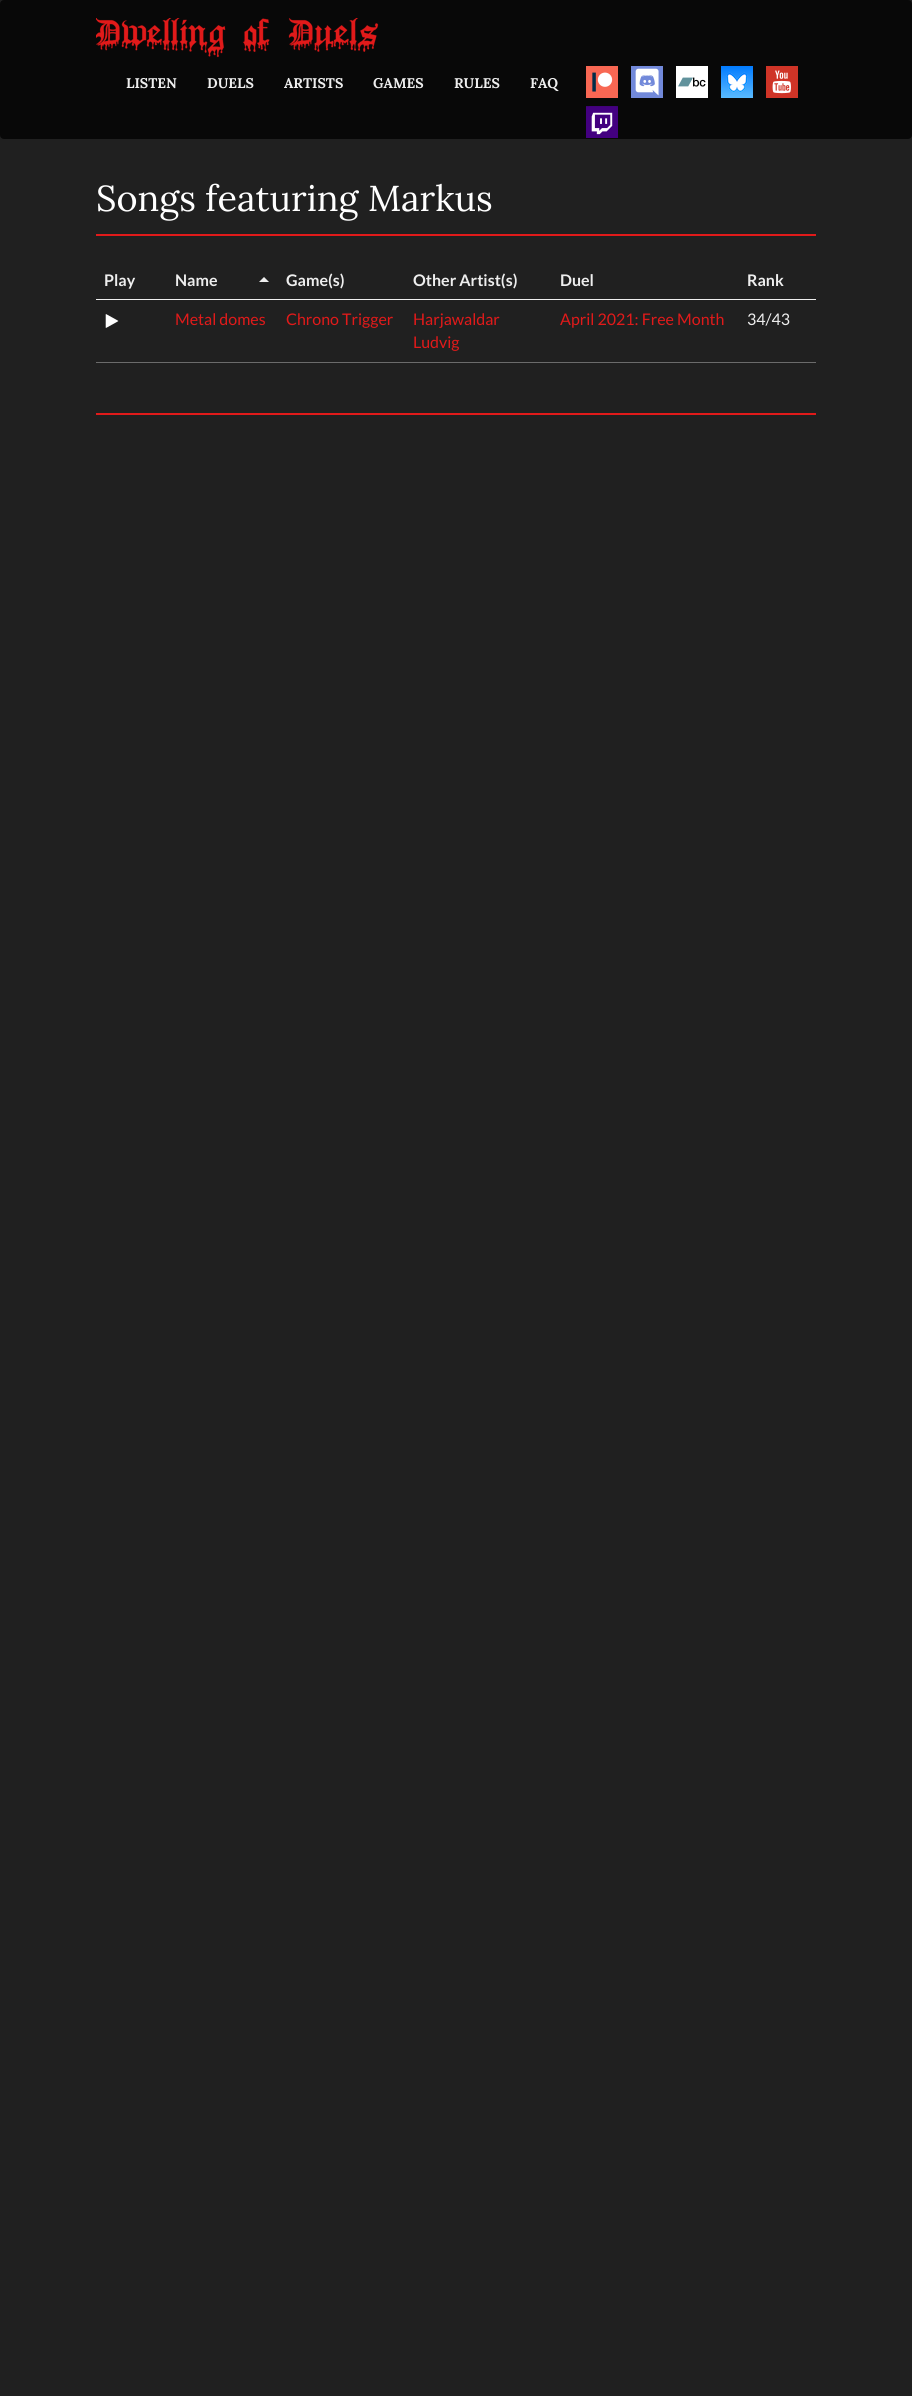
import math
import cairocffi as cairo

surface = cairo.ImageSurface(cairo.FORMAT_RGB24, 912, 2396)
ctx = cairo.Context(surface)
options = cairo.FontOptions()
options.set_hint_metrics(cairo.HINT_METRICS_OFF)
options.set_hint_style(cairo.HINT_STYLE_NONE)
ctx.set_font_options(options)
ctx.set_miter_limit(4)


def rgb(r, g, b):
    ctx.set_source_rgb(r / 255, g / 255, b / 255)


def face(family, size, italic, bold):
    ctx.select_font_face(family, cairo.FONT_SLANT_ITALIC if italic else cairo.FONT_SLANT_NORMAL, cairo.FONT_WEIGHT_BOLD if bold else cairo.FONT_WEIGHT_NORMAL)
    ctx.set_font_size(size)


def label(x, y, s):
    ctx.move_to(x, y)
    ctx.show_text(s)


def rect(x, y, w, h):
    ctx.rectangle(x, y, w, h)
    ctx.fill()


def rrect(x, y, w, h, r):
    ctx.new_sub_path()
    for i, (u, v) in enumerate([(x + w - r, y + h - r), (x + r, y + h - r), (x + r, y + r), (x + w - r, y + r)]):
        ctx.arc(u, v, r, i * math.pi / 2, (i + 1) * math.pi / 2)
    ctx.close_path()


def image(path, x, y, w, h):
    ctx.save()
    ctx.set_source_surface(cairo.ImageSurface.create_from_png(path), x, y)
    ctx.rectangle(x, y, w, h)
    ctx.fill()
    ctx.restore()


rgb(32, 32, 32)
ctx.paint()
rgb(8, 8, 8)
rrect(0, 0, 912, 139, 4)
ctx.fill()
image('image0.png', 96, 18, 283, 40)
face('Lora', 14, 0, 1)
rgb(238, 238, 238)
label(126, 88, 'LISTEN')
label(207, 88, 'DUELS')
label(284, 88, 'ARTISTS')
label(373, 88, 'GAMES')
label(454, 88, 'RULES')
label(530, 88, 'FAQ')
image('image1.png', 586, 66, 32, 32)
image('image2.png', 631, 66, 32, 32)
image('image3.png', 676, 66, 32, 32)
image('image4.png', 721, 66, 32, 32)
image('image5.png', 766, 66, 32, 32)
image('image6.png', 586, 106, 32, 32)
face('Lora', 36, 0, 0)
rgb(255, 255, 255)
label(96, 211, 'Songs featuring Markus')
rgb(225, 26, 26)
rect(96, 234, 720, 2)
face('Lato', 16, 0, 1)
rgb(238, 238, 238)
label(104, 286, 'Play')
label(175, 286, 'Name')
ctx.new_path()
ctx.move_to(269, 282)
ctx.line_to(259, 282)
ctx.line_to(264, 277)
ctx.close_path()
ctx.fill()
label(286, 286, 'Game(s)')
label(413, 286, 'Other Artist(s)')
label(560, 286, 'Duel')
rect(96, 299, 720, 1)
label(747, 286, 'Rank')
image('image7.png', 105, 314, 14, 14)
face('Lato', 16, 0, 0)
rgb(225, 26, 26)
label(175, 325, 'Metal domes')
label(286, 325, 'Chrono Trigger')
label(413, 325, 'Harjawaldar')
label(413, 348, 'Ludvig')
label(560, 325, 'April 2021: Free Month')
rgb(107, 107, 107)
rect(96, 362, 720, 1)
rgb(238, 238, 238)
label(747, 325, '34/43')
rgb(225, 26, 26)
rect(96, 413, 720, 2)
surface.write_to_png('render.png')
